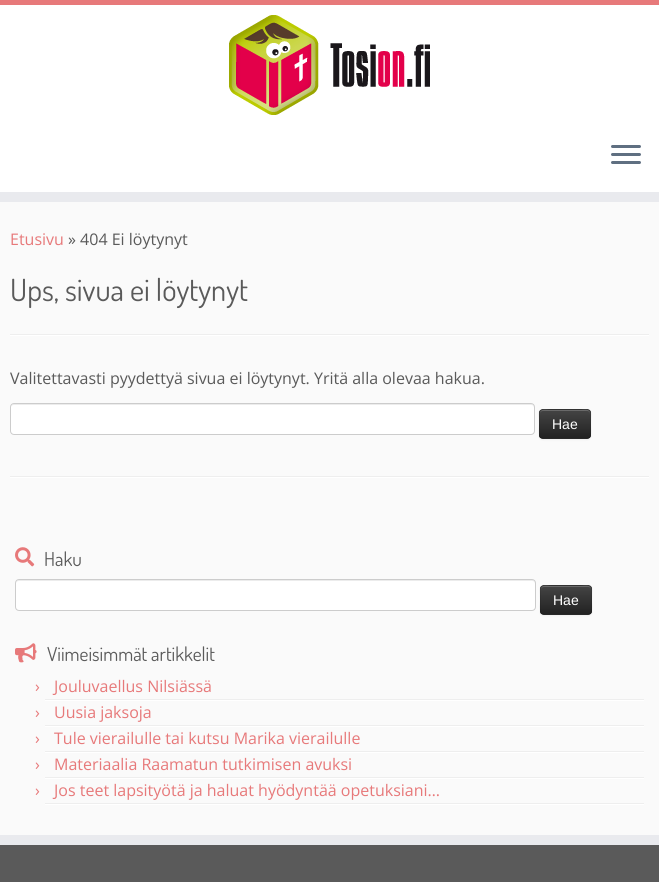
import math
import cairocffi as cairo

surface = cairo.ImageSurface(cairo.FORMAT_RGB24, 659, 882)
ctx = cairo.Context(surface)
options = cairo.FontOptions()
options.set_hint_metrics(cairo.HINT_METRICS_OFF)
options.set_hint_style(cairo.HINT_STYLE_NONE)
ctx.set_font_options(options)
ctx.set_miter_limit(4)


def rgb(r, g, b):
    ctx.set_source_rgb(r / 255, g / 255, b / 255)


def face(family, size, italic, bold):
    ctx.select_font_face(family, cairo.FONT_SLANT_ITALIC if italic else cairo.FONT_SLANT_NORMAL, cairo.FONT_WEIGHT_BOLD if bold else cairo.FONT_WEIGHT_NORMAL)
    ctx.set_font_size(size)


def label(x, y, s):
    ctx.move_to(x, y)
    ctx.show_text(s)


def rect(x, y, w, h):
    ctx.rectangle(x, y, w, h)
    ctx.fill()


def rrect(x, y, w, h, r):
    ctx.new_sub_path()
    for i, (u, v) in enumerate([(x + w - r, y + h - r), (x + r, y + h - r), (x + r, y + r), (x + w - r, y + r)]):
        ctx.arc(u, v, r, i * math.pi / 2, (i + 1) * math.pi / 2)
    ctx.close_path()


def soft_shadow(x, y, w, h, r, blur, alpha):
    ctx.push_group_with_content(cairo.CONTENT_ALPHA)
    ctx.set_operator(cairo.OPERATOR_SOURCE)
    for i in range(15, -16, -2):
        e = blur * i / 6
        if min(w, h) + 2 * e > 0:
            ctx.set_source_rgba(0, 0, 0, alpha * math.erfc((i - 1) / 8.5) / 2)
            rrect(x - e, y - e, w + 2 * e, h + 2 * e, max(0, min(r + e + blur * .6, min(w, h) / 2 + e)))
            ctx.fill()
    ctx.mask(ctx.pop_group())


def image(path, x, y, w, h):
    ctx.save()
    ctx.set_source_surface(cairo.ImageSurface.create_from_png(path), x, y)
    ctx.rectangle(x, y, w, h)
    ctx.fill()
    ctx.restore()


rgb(250, 250, 250)
ctx.paint()
rgb(255, 255, 255)
rect(0, 5, 659, 187)
rgb(231, 121, 122)
rect(0, 0, 659, 5)
rgb(233, 234, 238)
rect(0, 192, 659, 10)
image('image0.png', 229, 15, 201, 100)
rgb(95, 111, 129)
rrect(611, 145, 30, 3, 1.5)
ctx.fill()
rrect(611, 153, 30, 3, 1.5)
ctx.fill()
rrect(611, 161, 30, 3, 1.5)
ctx.fill()
face('Open Sans', 16, 0, 0)
rgb(231, 121, 122)
label(10, 245, 'Etusivu')
rgb(90, 90, 90)
label(68, 245, '» 404 Ei löytynyt')
face('Dosis', 30.5, 0, 0)
label(10, 301, 'Ups, sivua ei löytynyt')
rgb(238, 238, 238)
rect(10, 334, 639, 1)
rgb(255, 255, 255)
rect(10, 335, 639, 1)
face('Open Sans', 16, 0, 0)
rgb(90, 90, 90)
label(10, 384, 'Valitettavasti pyydettyä sivua ei löytynyt. Yritä alla olevaa hakua.')
rgb(255, 255, 255)
rrect(10, 403, 525, 32, 4)
ctx.fill()
rgb(236, 236, 236)
ctx.new_path()
ctx.move_to(14, 405)
ctx.line_to(531, 405)
ctx.curve_to(533, 405, 534, 406, 534, 408)
ctx.line_to(534, 406)
ctx.line_to(532, 404)
ctx.line_to(14, 404)
ctx.curve_to(12, 404, 11, 406, 11, 408)
ctx.curve_to(11, 406, 12, 405, 14, 405)
ctx.close_path()
ctx.fill()
rrect(10.5, 403.5, 524, 31, 3.5)
rgb(204, 204, 204)
ctx.set_line_width(1)
ctx.stroke()
rgb(0, 0, 0)
soft_shadow(539, 410, 52, 30, 4, 1, 0.05)
rgb(54, 54, 54)
rrect(539, 409, 52, 30, 4)
ctx.fill()
ctx.save()
rrect(539, 409, 52, 30, 4)
ctx.clip()
gradient = cairo.LinearGradient(565, 410, 565, 438)
gradient.add_color_stop_rgba(0, 0.267, 0.267, 0.267, 1)
gradient.add_color_stop_rgba(1, 0.133, 0.133, 0.133, 1)
ctx.set_source(gradient)
rect(539, 410, 52, 28)
ctx.restore()
rgb(105, 105, 105)
ctx.new_path()
ctx.move_to(543, 411)
ctx.line_to(587, 411)
ctx.curve_to(589, 411, 590, 412, 590, 414)
ctx.curve_to(590, 408, 584, 410, 580, 410)
ctx.line_to(550, 410)
ctx.curve_to(546, 410, 540, 408, 540, 414)
ctx.curve_to(540, 412, 541, 411, 543, 411)
ctx.close_path()
ctx.fill()
ctx.new_path()
ctx.move_to(589.5, 437.5)
ctx.curve_to(589, 438, 588, 438.5, 587, 438.5)
ctx.line_to(543, 438.5)
ctx.curve_to(542, 438.5, 541, 438, 540.5, 437.5)
ctx.set_source_rgba(0, 0, 0, 0.25)
ctx.stroke()
ctx.new_path()
ctx.move_to(540.5, 437.5)
ctx.curve_to(538.5, 435.5, 539.5, 427, 539.5, 424)
ctx.curve_to(539.5, 409.5, 536.5, 409.5, 550.5, 409.5)
ctx.line_to(579.5, 409.5)
ctx.curve_to(593.5, 409.5, 590.5, 409.5, 590.5, 424)
ctx.curve_to(590.5, 427, 591.5, 435.5, 589.5, 437.5)
ctx.set_source_rgba(0, 0, 0, 0.1)
ctx.stroke()
face('Liberation Sans', 14, 0, 0)
rgb(255, 255, 255)
label(552, 429, 'Hae')
rgb(238, 238, 238)
rect(10, 476, 639, 1)
rgb(255, 255, 255)
rect(10, 477, 639, 1)
image('image1.png', 15, 547, 20, 20)
face('Dosis', 19.25, 0, 0)
rgb(90, 90, 90)
label(44, 566, 'Haku')
rgb(255, 255, 255)
rrect(15, 579, 521, 32, 4)
ctx.fill()
rgb(236, 236, 236)
ctx.new_path()
ctx.move_to(19, 581)
ctx.line_to(532, 581)
ctx.curve_to(534, 581, 535, 582, 535, 584)
ctx.line_to(535, 582)
ctx.line_to(533, 580)
ctx.line_to(19, 580)
ctx.curve_to(17, 580, 16, 582, 16, 584)
ctx.curve_to(16, 582, 17, 581, 19, 581)
ctx.close_path()
ctx.fill()
rrect(15.5, 579.5, 520, 31, 3.5)
rgb(204, 204, 204)
ctx.stroke()
rgb(0, 0, 0)
soft_shadow(540, 586, 52, 30, 4, 1, 0.05)
rgb(54, 54, 54)
rrect(540, 585, 52, 30, 4)
ctx.fill()
ctx.save()
rrect(540, 585, 52, 30, 4)
ctx.clip()
gradient = cairo.LinearGradient(566, 586, 566, 614)
gradient.add_color_stop_rgba(0, 0.267, 0.267, 0.267, 1)
gradient.add_color_stop_rgba(1, 0.133, 0.133, 0.133, 1)
ctx.set_source(gradient)
rect(540, 586, 52, 28)
ctx.restore()
rgb(105, 105, 105)
ctx.new_path()
ctx.move_to(544, 587)
ctx.line_to(588, 587)
ctx.curve_to(590, 587, 591, 588, 591, 590)
ctx.curve_to(591, 584, 585, 586, 581, 586)
ctx.line_to(551, 586)
ctx.curve_to(547, 586, 541, 584, 541, 590)
ctx.curve_to(541, 588, 542, 587, 544, 587)
ctx.close_path()
ctx.fill()
ctx.new_path()
ctx.move_to(590.5, 613.5)
ctx.curve_to(590, 614, 589, 614.5, 588, 614.5)
ctx.line_to(544, 614.5)
ctx.curve_to(543, 614.5, 542, 614, 541.5, 613.5)
ctx.set_source_rgba(0, 0, 0, 0.25)
ctx.stroke()
ctx.new_path()
ctx.move_to(541.5, 613.5)
ctx.curve_to(539.5, 611.5, 540.5, 603, 540.5, 600)
ctx.curve_to(540.5, 585.5, 537.5, 585.5, 551.5, 585.5)
ctx.line_to(580.5, 585.5)
ctx.curve_to(594.5, 585.5, 591.5, 585.5, 591.5, 600)
ctx.curve_to(591.5, 603, 592.5, 611.5, 590.5, 613.5)
ctx.set_source_rgba(0, 0, 0, 0.1)
ctx.stroke()
face('Liberation Sans', 14, 0, 0)
rgb(255, 255, 255)
label(553, 605, 'Hae')
image('image2.png', 15, 643, 22, 20)
face('Dosis', 19.25, 0, 0)
rgb(90, 90, 90)
label(47, 661, 'Viimeisimmät artikkelit')
rgb(238, 238, 238)
rect(45, 699, 599, 1)
face('Open Sans', 16, 0, 0)
rgb(231, 121, 122)
label(35, 692, '›')
label(54, 692, 'Jouluvaellus Nilsiässä')
rgb(255, 255, 255)
rect(45, 700, 599, 1)
rgb(238, 238, 238)
rect(45, 725, 599, 1)
rgb(231, 121, 122)
label(35, 718, '›')
label(54, 718, 'Uusia jaksoja')
rgb(255, 255, 255)
rect(45, 726, 599, 1)
rgb(238, 238, 238)
rect(45, 751, 599, 1)
rgb(231, 121, 122)
label(35, 744, '›')
label(54, 744, 'Tule vierailulle tai kutsu Marika vierailulle')
rgb(255, 255, 255)
rect(45, 752, 599, 1)
rgb(238, 238, 238)
rect(45, 777, 599, 1)
rgb(231, 121, 122)
label(35, 770, '›')
label(54, 770, 'Materiaalia Raamatun tutkimisen avuksi')
rgb(255, 255, 255)
rect(45, 778, 599, 1)
rgb(238, 238, 238)
rect(45, 803, 599, 1)
rgb(231, 121, 122)
label(35, 796, '›')
label(54, 796, 'Jos teet lapsityötä ja haluat hyödyntää opetuksiani…')
rgb(255, 255, 255)
rect(45, 804, 599, 1)
rgb(90, 90, 90)
rect(0, 845, 659, 37)
rgb(233, 234, 238)
rect(0, 835, 659, 10)
surface.write_to_png('render.png')
